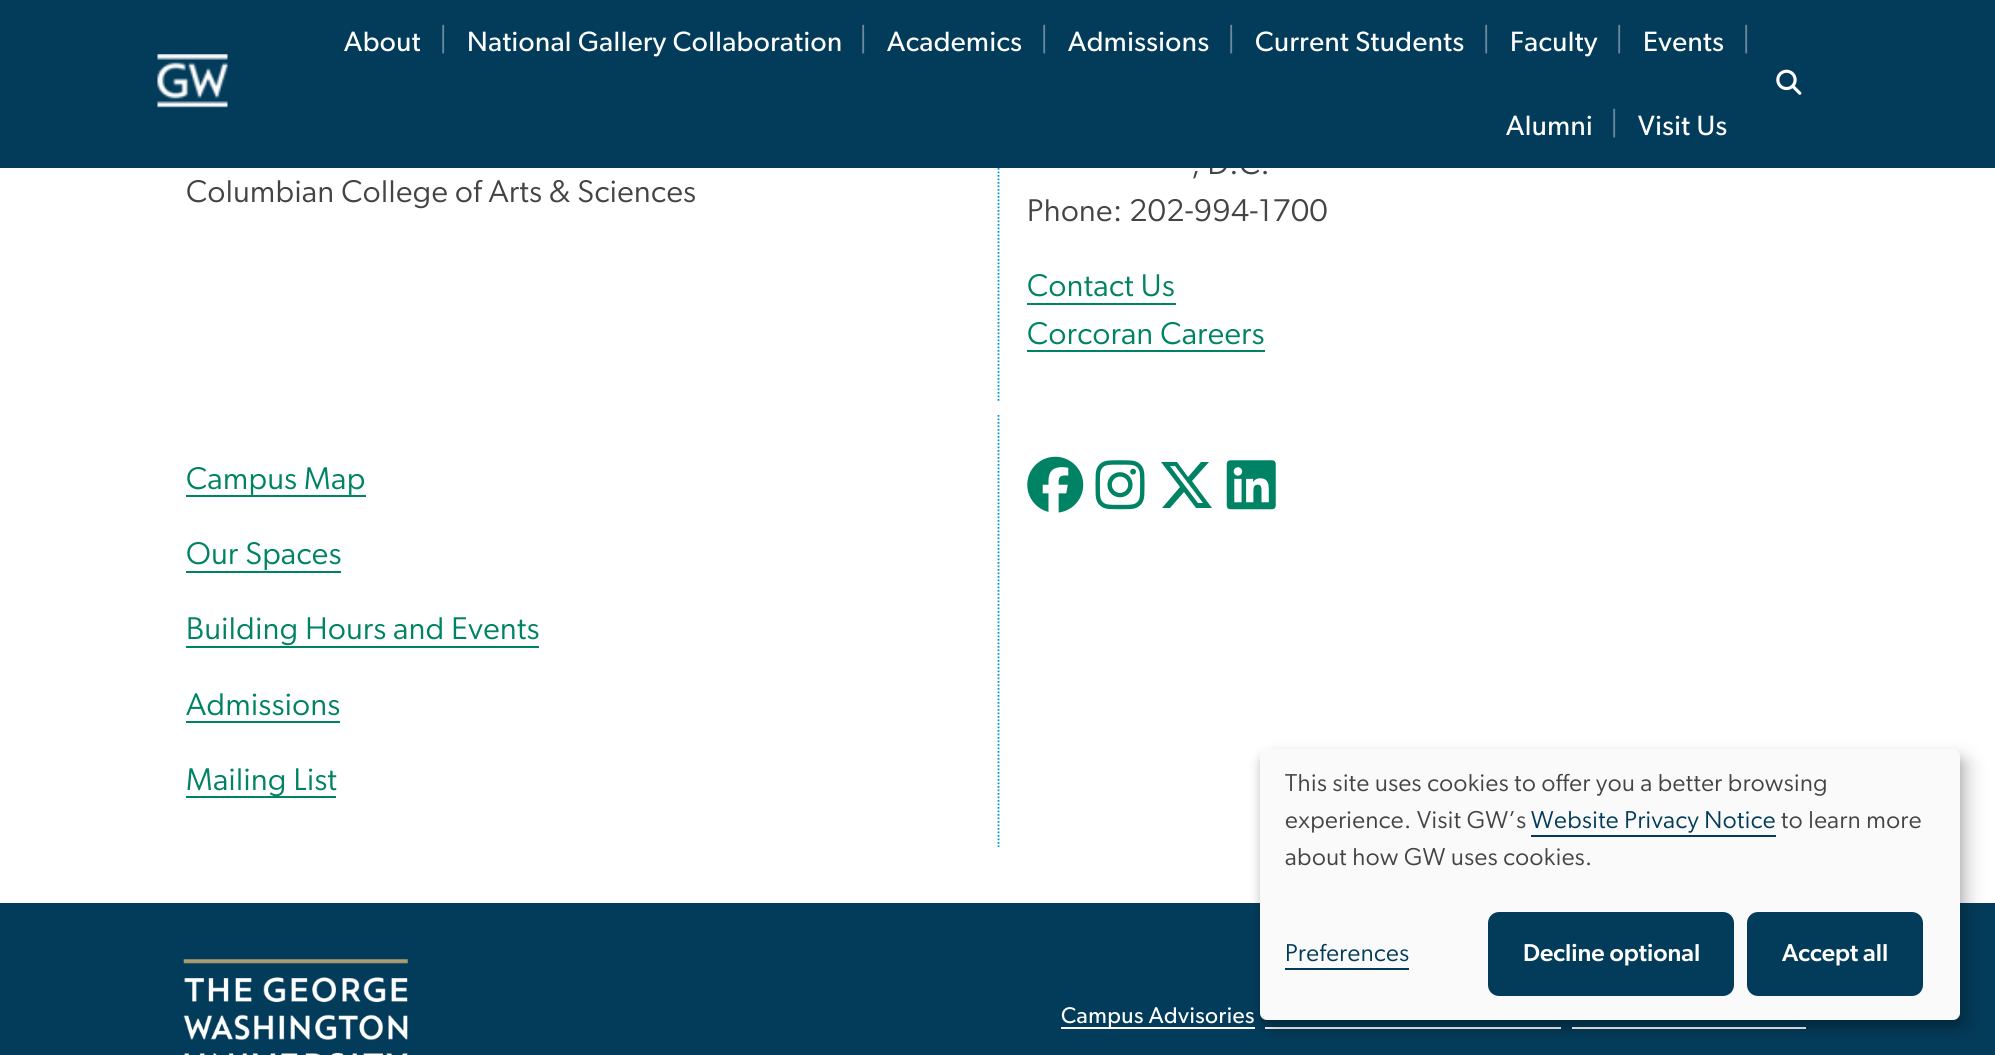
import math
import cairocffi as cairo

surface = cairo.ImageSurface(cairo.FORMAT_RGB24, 1995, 1055)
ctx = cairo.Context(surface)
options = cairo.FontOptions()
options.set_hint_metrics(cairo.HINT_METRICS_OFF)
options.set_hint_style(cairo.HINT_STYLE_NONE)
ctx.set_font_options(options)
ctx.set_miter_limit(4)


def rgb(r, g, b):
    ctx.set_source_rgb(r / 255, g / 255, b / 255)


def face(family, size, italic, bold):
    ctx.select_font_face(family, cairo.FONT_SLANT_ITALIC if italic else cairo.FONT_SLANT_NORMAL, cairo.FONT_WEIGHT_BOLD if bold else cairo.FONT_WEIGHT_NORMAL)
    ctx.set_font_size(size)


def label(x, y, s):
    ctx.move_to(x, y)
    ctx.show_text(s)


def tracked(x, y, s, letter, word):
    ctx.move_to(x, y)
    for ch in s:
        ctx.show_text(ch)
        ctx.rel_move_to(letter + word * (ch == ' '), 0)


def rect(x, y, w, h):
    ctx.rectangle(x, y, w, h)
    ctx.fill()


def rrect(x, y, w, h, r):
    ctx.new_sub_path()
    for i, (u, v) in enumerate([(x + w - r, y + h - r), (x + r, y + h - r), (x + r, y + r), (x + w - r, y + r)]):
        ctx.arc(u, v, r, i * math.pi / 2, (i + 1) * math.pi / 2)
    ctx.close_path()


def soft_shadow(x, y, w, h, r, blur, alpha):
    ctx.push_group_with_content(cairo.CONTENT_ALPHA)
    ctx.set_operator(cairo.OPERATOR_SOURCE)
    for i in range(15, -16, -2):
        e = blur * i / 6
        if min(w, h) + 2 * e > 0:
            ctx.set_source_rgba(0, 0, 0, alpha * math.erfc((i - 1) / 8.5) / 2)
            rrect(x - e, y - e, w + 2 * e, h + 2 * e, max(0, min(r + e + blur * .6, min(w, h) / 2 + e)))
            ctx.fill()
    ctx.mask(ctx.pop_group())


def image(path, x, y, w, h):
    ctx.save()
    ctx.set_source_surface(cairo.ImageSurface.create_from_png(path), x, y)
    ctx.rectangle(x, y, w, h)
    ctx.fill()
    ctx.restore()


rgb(255, 255, 255)
ctx.paint()
ctx.new_path()
ctx.move_to(998.5, 52.5)
ctx.line_to(998.5, 401)
rgb(0, 150, 214)
ctx.set_line_width(1.8)
ctx.set_dash([1.75, 1.75])
ctx.stroke()
face('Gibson', 31.5, 0, 0)
rgb(68, 68, 68)
tracked(1191, 174, ', D.C.', 0.45, 0)
rgb(3, 60, 90)
rect(0, 0, 1995, 168)
image('image0.png', 157, 54, 71, 54)
face('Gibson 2', 28, 0, 0)
rgb(255, 255, 255)
tracked(344, 51, 'About', 0.45, 0)
face('Gibson', 31.5, 0, 0)
rgb(104, 138, 156)
tracked(439, 50, '|', 0.45, 0)
face('Gibson 2', 28, 0, 0)
rgb(255, 255, 255)
tracked(467, 51, 'National Gallery Collaboration', 0.45, 0)
face('Gibson', 31.5, 0, 0)
rgb(104, 138, 156)
tracked(859, 50, '|', 0.45, 0)
face('Gibson 2', 28, 0, 0)
rgb(255, 255, 255)
tracked(887, 51, 'Academics', 0.45, 0)
face('Gibson', 31.5, 0, 0)
rgb(104, 138, 156)
tracked(1040, 50, '|', 0.45, 0)
face('Gibson 2', 28, 0, 0)
rgb(255, 255, 255)
tracked(1068, 51, 'Admissions', 0.45, 0)
face('Gibson', 31.5, 0, 0)
rgb(104, 138, 156)
tracked(1227, 50, '|', 0.45, 0)
face('Gibson 2', 28, 0, 0)
rgb(255, 255, 255)
tracked(1255, 51, 'Current Students', 0.45, 0)
face('Gibson', 31.5, 0, 0)
rgb(104, 138, 156)
tracked(1482, 50, '|', 0.45, 0)
face('Gibson 2', 28, 0, 0)
rgb(255, 255, 255)
tracked(1510, 51, 'Faculty', 0.45, 0)
face('Gibson', 31.5, 0, 0)
rgb(104, 138, 156)
tracked(1615, 50, '|', 0.45, 0)
face('Gibson 2', 28, 0, 0)
rgb(255, 255, 255)
tracked(1643, 51, 'Events', 0.45, 0)
face('Gibson', 31.5, 0, 0)
rgb(104, 138, 156)
tracked(1742, 50, '|', 0.45, 0)
face('Gibson 2', 28, 0, 0)
rgb(255, 255, 255)
tracked(1506, 135, 'Alumni', 0.45, 0)
face('Gibson', 31.5, 0, 0)
rgb(104, 138, 156)
tracked(1610, 134, '|', 0.45, 0)
face('Gibson 2', 28, 0, 0)
rgb(255, 255, 255)
tracked(1638, 135, 'Visit Us', 0.45, 0)
image('image1.png', 1776, 69, 26, 26)
face('Gibson', 31.5, 0, 0)
rgb(68, 68, 68)
tracked(186, 202, 'Columbian College of Arts & Sciences', 0.45, 0)
tracked(1027, 221, 'Phone: 202-994-1700', 0.45, 0)
rgb(0, 131, 100)
tracked(1027, 296, 'Contact Us', 0.45, 0)
rect(1027, 303, 149, 2)
tracked(1027, 344, 'Corcoran Careers', 0.45, 0)
rect(1027, 350, 238, 2)
tracked(186, 489, 'Campus Map', 0.45, 0)
rect(186, 495, 180, 2)
tracked(186, 564, 'Our Spaces', 0.45, 0)
rect(186, 571, 155, 2)
tracked(186, 639, 'Building Hours and Events', 0.45, 0)
rect(186, 646, 353, 2)
tracked(186, 715, 'Admissions', 0.45, 0)
rect(186, 721, 154, 2)
rect(186, 796, 150, 2)
tracked(186, 790, 'Mailing List', 0.45, 0)
ctx.new_path()
ctx.move_to(998.5, 415)
ctx.line_to(998.5, 847)
rgb(0, 150, 214)
ctx.stroke()
image('image2.png', 1027, 456, 57, 57)
image('image3.png', 1095, 460, 50, 50)
rgb(0, 131, 100)
ctx.new_path()
ctx.move_to(1201, 462)
ctx.line_to(1209, 462)
ctx.line_to(1192, 481)
ctx.line_to(1212, 508)
ctx.line_to(1196, 508)
ctx.line_to(1184, 492)
ctx.line_to(1170, 508)
ctx.line_to(1162, 508)
ctx.line_to(1180, 487)
ctx.line_to(1161, 462)
ctx.line_to(1177, 462)
ctx.line_to(1188, 477)
ctx.close_path()
ctx.move_to(1198, 503)
ctx.line_to(1203, 503)
ctx.line_to(1175, 466)
ctx.line_to(1170, 466)
ctx.close_path()
ctx.fill()
image('image4.png', 1226, 460, 50, 50)
rgb(3, 60, 90)
rect(0, 903, 1995, 152)
image('image5.png', 183, 959, 225, 96)
rgb(255, 255, 255)
rect(1061, 1027, 194, 2)
face('Gibson 2', 22.75, 0, 0)
tracked(1061, 1023, 'Campus Advisories', 0.45, 0)
rect(1265, 1027, 296, 2)
rect(1572, 1027, 234, 2)
rgb(0, 0, 0)
soft_shadow(1269, 758, 700, 271, 7, 9, 0.19)
soft_shadow(1260, 756, 700, 271, 7, 5, 0.2)
rgb(250, 250, 250)
rrect(1260, 749, 700, 271, 7)
ctx.fill()
face('Gibson', 24.5, 0, 0)
rgb(68, 68, 68)
tracked(1285, 791, 'This site uses cookies to offer you a better browsing', 0.45, 0)
tracked(1285, 828, 'experience. Visit GW’s', 0.45, 0)
rgb(3, 60, 90)
rect(1531, 835, 245, 2)
tracked(1531, 828, 'Website Privacy Notice', 0.45, 0)
rgb(68, 68, 68)
tracked(1781, 828, 'to learn more', 0.45, 0)
tracked(1285, 865, 'about how GW uses cookies.', 0.45, 0)
rgb(3, 60, 90)
rect(1285, 968, 124, 2)
tracked(1285, 961, 'Preferences', 0.45, 0)
rrect(1490.5, 914.5, 241, 79, 8.5)
ctx.fill_preserve()
ctx.set_line_width(5)
ctx.set_dash([])
ctx.stroke()
face('Gibson Medium', 24.5, 0, 0)
rgb(255, 255, 255)
label(1523, 961, 'Decline optional')
rgb(3, 60, 90)
rrect(1749.5, 914.5, 171, 79, 8.5)
ctx.fill_preserve()
ctx.stroke()
rgb(255, 255, 255)
label(1782, 961, 'Accept all')
surface.write_to_png('render.png')
